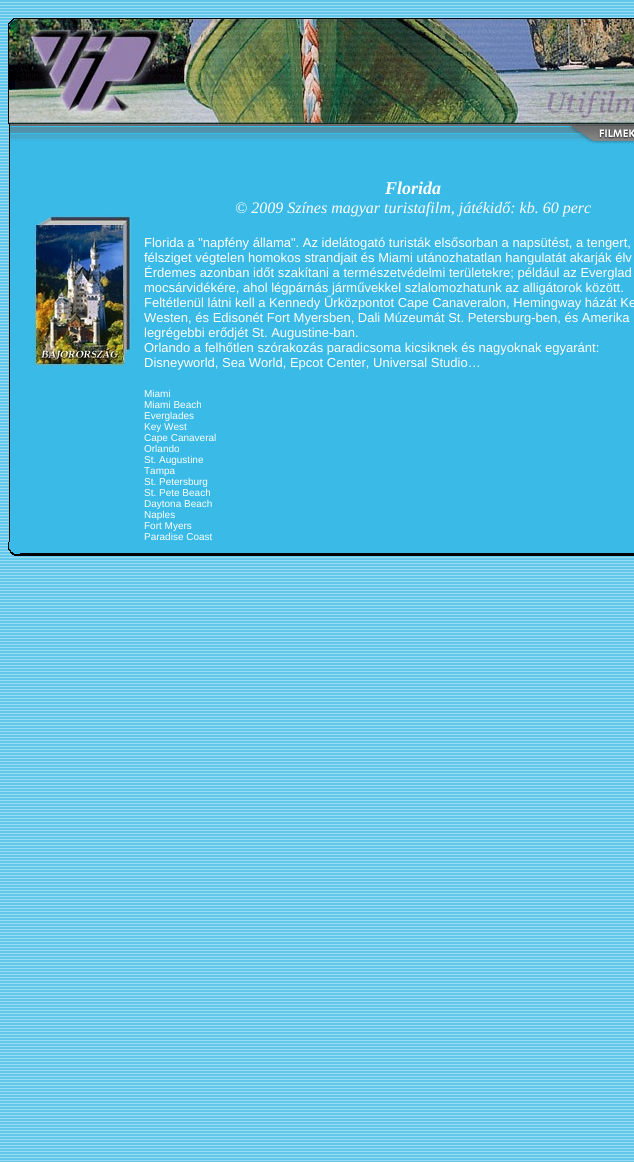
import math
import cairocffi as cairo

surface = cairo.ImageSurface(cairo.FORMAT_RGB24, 634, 1162)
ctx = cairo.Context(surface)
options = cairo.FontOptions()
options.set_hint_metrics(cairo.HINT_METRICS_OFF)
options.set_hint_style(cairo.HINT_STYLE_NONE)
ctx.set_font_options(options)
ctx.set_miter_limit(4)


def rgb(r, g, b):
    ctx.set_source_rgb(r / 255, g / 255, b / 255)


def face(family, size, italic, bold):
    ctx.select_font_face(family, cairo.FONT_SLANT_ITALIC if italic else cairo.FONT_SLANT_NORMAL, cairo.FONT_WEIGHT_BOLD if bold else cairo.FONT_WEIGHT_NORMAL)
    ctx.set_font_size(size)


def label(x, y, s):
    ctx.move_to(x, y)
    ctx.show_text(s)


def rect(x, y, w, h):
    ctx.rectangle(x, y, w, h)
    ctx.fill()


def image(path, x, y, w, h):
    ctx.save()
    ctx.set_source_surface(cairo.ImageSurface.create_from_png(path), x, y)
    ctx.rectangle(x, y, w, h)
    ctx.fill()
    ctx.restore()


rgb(255, 255, 255)
ctx.paint()
image('image0.png', 0, 0, 634, 1162)
image('image1.png', 8, 18, 7, 106)
image('image2.png', 15, 18, 619, 106)
rgb(0, 0, 0)
rect(9, 124, 1, 418)
image('image3.png', 10, 124, 586, 20)
image('image4.png', 596, 124, 38, 20)
rgb(57, 186, 231)
rect(10, 144, 624, 398)
face('Liberation Serif', 18, 1, 1)
rgb(255, 255, 255)
label(385, 194, 'Florida')
face('Liberation Serif', 16, 1, 0)
label(235, 213, '© 2009 Színes magyar turistafilm, játékidő: kb. 60 perc')
image('image5.png', 33, 213, 100, 157)
face('Liberation Sans', 13, 0, 0)
label(144, 247, 'Florida a "napfény állama". Az idelátogató turisták elsősorban a napsütést, a tengert,')
label(144, 262, 'félsziget végtelen homokos strandjait és Miami utánozhatatlan hangulatát akarják élv')
label(144, 277, 'Érdemes azonban időt szakítani a természetvédelmi területekre; például az Everglad')
label(144, 292, 'mocsárvidékére, ahol légpárnás járművekkel szlalomozhatunk az alligátorok között.')
label(144, 307, 'Feltétlenül látni kell a Kennedy Űrközpontot Cape Canaveralon, Hemingway házát Ke')
label(144, 322, 'Westen, és Edisonét Fort Myersben, Dali Múzeumát St. Petersburg-ben, és Amerika')
label(144, 337, 'legrégebbi erődjét St. Augustine-ban.')
label(144, 352, 'Orlando a felhőtlen szórakozás paradicsoma kicsiknek és nagyoknak egyaránt:')
label(144, 367, 'Disneyworld, Sea World, Epcot Center, Universal Studio…')
face('Liberation Sans', 10, 0, 0)
label(144, 397, 'Miami')
label(144, 408, 'Miami Beach')
label(144, 419, 'Everglades')
label(144, 430, 'Key West')
label(144, 441, 'Cape Canaveral')
label(144, 452, 'Orlando')
label(144, 463, 'St. Augustine')
label(144, 474, 'Tampa')
label(144, 485, 'St. Petersburg')
label(144, 496, 'St. Pete Beach')
label(144, 507, 'Daytona Beach')
label(144, 518, 'Naples')
label(144, 529, 'Fort Myers')
label(144, 540, 'Paradise Coast')
image('image6.png', 8, 542, 12, 14)
rgb(57, 186, 231)
rect(20, 542, 614, 11)
rgb(0, 0, 0)
rect(20, 553, 614, 3)
surface.write_to_png('render.png')
